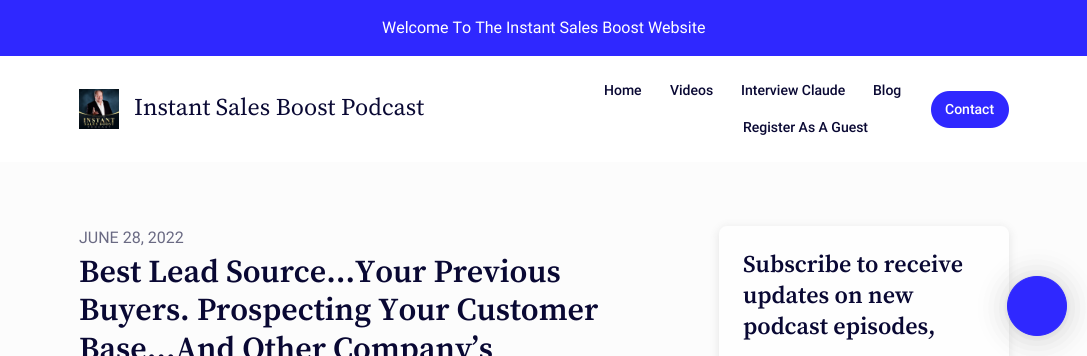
import math
import cairocffi as cairo

surface = cairo.ImageSurface(cairo.FORMAT_RGB24, 1087, 356)
ctx = cairo.Context(surface)
options = cairo.FontOptions()
options.set_hint_metrics(cairo.HINT_METRICS_OFF)
options.set_hint_style(cairo.HINT_STYLE_NONE)
ctx.set_font_options(options)
ctx.set_miter_limit(4)


def rgb(r, g, b):
    ctx.set_source_rgb(r / 255, g / 255, b / 255)


def face(family, size, italic, bold):
    ctx.select_font_face(family, cairo.FONT_SLANT_ITALIC if italic else cairo.FONT_SLANT_NORMAL, cairo.FONT_WEIGHT_BOLD if bold else cairo.FONT_WEIGHT_NORMAL)
    ctx.set_font_size(size)


def label(x, y, s):
    ctx.move_to(x, y)
    ctx.show_text(s)


def rect(x, y, w, h):
    ctx.rectangle(x, y, w, h)
    ctx.fill()


def rrect(x, y, w, h, r):
    ctx.new_sub_path()
    for i, (u, v) in enumerate([(x + w - r, y + h - r), (x + r, y + h - r), (x + r, y + r), (x + w - r, y + r)]):
        ctx.arc(u, v, r, i * math.pi / 2, (i + 1) * math.pi / 2)
    ctx.close_path()


def soft_shadow(x, y, w, h, r, blur, alpha):
    ctx.push_group_with_content(cairo.CONTENT_ALPHA)
    ctx.set_operator(cairo.OPERATOR_SOURCE)
    for i in range(15, -16, -2):
        e = blur * i / 6
        if min(w, h) + 2 * e > 0:
            ctx.set_source_rgba(0, 0, 0, alpha * math.erfc((i - 1) / 8.5) / 2)
            rrect(x - e, y - e, w + 2 * e, h + 2 * e, max(0, min(r + e + blur * .6, min(w, h) / 2 + e)))
            ctx.fill()
    ctx.mask(ctx.pop_group())


def image(path, x, y, w, h):
    ctx.save()
    ctx.set_source_surface(cairo.ImageSurface.create_from_png(path), x, y)
    ctx.rectangle(x, y, w, h)
    ctx.fill()
    ctx.restore()


rgb(252, 252, 252)
ctx.paint()
rgb(47, 40, 255)
rect(0, 0, 1087, 56)
face('Roboto', 16, 0, 0)
rgb(255, 255, 255)
label(382, 33, 'Welcome To The Instant Sales Boost Website')
rect(0, 56, 1087, 106)
image('image0.png', 79, 89, 40, 40)
face('Source Serif Pro', 24, 0, 0)
rgb(9, 8, 51)
label(134, 115, 'Instant Sales Boost Podcast')
face('Roboto Medium', 14, 0, 0)
label(604, 95, 'Home')
label(670, 95, 'Videos')
label(741, 95, 'Interview Claude')
label(873, 95, 'Blog')
label(743, 132, 'Register As A Guest')
rgb(47, 40, 255)
rrect(931, 91, 78, 37, 18.5)
ctx.fill()
rgb(255, 255, 255)
label(945, 114, 'Contact')
face('Roboto', 16, 0, 0)
rgb(106, 106, 131)
label(79, 243, 'JUNE 28, 2022')
face('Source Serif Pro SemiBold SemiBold', 32, 0, 0)
rgb(9, 8, 51)
label(79, 282, 'Best Lead Source…Your Previous')
label(79, 320, 'Buyers. Prospecting Your Customer')
label(79, 359, 'Base…And Other Company’s')
rgb(0, 0, 0)
soft_shadow(719, 228, 290, 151, 8, 5, 0.1)
rgb(254, 254, 254)
rrect(719, 226, 290, 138, 8)
ctx.fill()
face('Source Serif Pro SemiBold SemiBold', 24, 0, 0)
rgb(9, 8, 51)
label(743, 272, 'Subscribe to receive')
label(743, 303, 'updates on new')
label(743, 334, 'podcast episodes,')
rgb(0, 0, 0)
soft_shadow(1007, 278, 60, 60, 30, 16, 0.16)
soft_shadow(1007, 277, 60, 60, 30, 3, 0.06)
rgb(47, 40, 255)
ctx.arc(1037, 306, 29.5, 0, 2 * math.pi)
ctx.fill_preserve()
ctx.set_line_width(1)
ctx.stroke()
surface.write_to_png('render.png')
